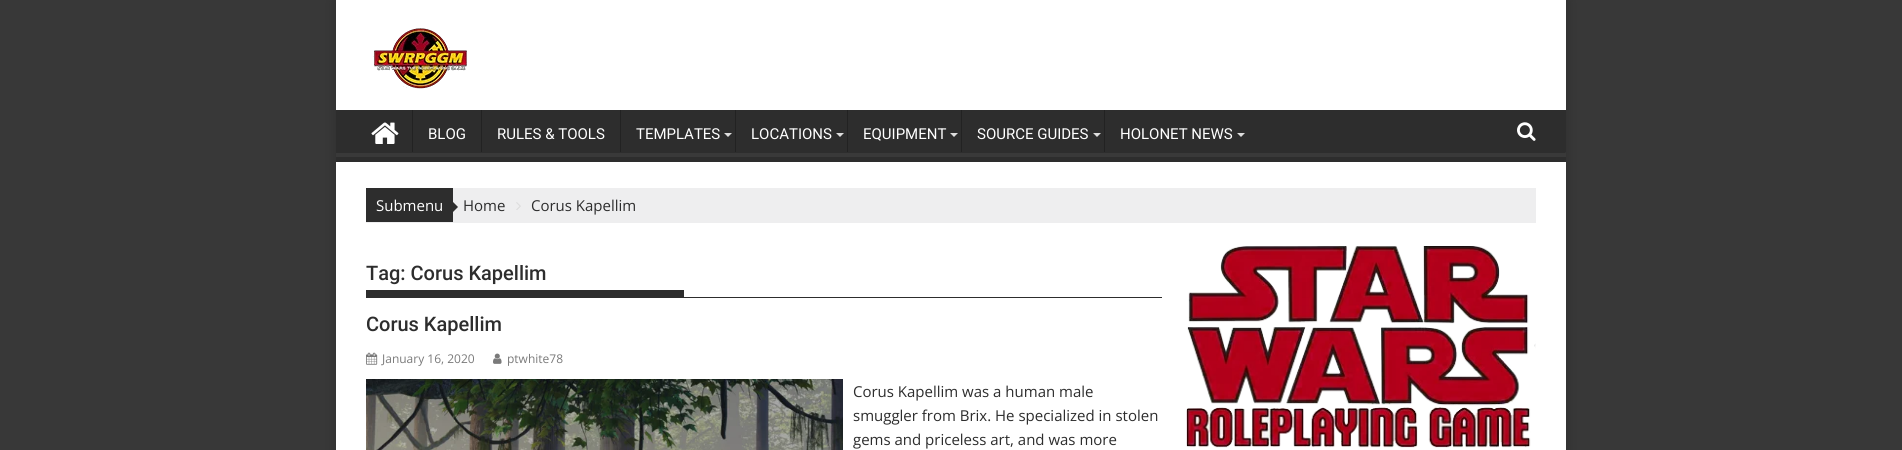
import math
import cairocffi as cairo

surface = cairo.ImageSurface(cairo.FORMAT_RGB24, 1902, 450)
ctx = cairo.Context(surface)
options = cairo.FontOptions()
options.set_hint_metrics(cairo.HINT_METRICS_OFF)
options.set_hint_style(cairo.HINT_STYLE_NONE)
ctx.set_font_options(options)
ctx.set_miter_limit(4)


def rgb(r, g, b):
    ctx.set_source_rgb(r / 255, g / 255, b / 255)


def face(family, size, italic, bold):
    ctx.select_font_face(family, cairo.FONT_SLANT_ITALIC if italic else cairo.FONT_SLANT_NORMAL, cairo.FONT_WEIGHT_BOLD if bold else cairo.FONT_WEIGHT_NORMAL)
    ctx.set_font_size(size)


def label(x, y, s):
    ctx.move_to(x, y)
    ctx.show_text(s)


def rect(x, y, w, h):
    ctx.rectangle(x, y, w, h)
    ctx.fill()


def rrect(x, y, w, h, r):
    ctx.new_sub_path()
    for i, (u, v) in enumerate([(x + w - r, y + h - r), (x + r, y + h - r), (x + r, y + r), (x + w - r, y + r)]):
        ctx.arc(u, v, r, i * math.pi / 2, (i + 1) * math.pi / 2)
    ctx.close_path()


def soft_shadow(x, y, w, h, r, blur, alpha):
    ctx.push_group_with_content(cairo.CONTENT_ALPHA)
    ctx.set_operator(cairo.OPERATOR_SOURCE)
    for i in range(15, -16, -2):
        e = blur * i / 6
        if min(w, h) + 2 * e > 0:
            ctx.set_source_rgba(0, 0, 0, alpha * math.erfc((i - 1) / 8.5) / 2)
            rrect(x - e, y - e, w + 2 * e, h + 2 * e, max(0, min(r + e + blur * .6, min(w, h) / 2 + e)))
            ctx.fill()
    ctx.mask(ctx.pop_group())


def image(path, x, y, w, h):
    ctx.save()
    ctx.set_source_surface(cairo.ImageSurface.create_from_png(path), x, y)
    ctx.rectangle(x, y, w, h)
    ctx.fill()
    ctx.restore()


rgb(56, 56, 56)
ctx.paint()
rgb(45, 45, 45)
soft_shadow(336, 0, 1230, 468, 0, 6, 1)
rgb(255, 255, 255)
rect(336, 0, 1230, 450)
image('image0.png', 373, 28, 94, 61)
rgb(45, 45, 45)
rect(336, 110, 1230, 52)
ctx.save()
ctx.rectangle(336, 110, 1230, 47)
ctx.clip()
rgb(57, 57, 57)
ctx.set_fill_rule(cairo.FILL_RULE_EVEN_ODD)
ctx.new_path()
ctx.move_to(237, 11)
ctx.line_to(1665, 11)
ctx.line_to(1665, 256)
ctx.line_to(237, 256)
ctx.close_path()
ctx.move_to(335, 104)
ctx.line_to(1565, 104)
ctx.curve_to(1567, 105, 1566, 119, 1566, 121)
ctx.line_to(1566, 152)
ctx.line_to(1565, 153)
ctx.line_to(335, 153)
ctx.line_to(334, 152)
ctx.line_to(334, 104)
ctx.close_path()
ctx.fill()
ctx.restore()
image('image1.png', 371, 122, 28, 22)
rgb(34, 34, 34)
rect(412, 110, 1, 42)
face('Roboto', 15, 0, 0)
rgb(255, 255, 255)
label(428, 139, 'BLOG')
rgb(34, 34, 34)
rect(481, 110, 1, 42)
rgb(255, 255, 255)
label(497, 139, 'RULES & TOOLS')
rgb(34, 34, 34)
rect(620, 110, 1, 42)
rgb(255, 255, 255)
label(636, 139, 'TEMPLATES')
rgb(221, 221, 221)
ctx.new_path()
ctx.move_to(724, 133)
ctx.line_to(732, 133)
ctx.line_to(728, 137)
ctx.close_path()
ctx.fill()
rgb(34, 34, 34)
rect(735, 110, 1, 42)
rgb(255, 255, 255)
label(751, 139, 'LOCATIONS')
rgb(221, 221, 221)
ctx.new_path()
ctx.move_to(836, 133)
ctx.line_to(844, 133)
ctx.line_to(840, 137)
ctx.close_path()
ctx.fill()
rgb(34, 34, 34)
rect(847, 110, 1, 42)
rgb(255, 255, 255)
label(863, 139, 'EQUIPMENT')
rgb(221, 221, 221)
ctx.new_path()
ctx.move_to(950, 133)
ctx.line_to(958, 133)
ctx.line_to(954, 137)
ctx.close_path()
ctx.fill()
rgb(34, 34, 34)
rect(961, 110, 1, 42)
rgb(255, 255, 255)
label(977, 139, 'SOURCE GUIDES')
rgb(221, 221, 221)
ctx.new_path()
ctx.move_to(1093, 133)
ctx.line_to(1101, 133)
ctx.line_to(1097, 137)
ctx.close_path()
ctx.fill()
rgb(34, 34, 34)
rect(1104, 110, 1, 42)
rgb(255, 255, 255)
label(1120, 139, 'HOLONET NEWS')
rgb(221, 221, 221)
ctx.new_path()
ctx.move_to(1237, 133)
ctx.line_to(1245, 133)
ctx.line_to(1241, 137)
ctx.close_path()
ctx.fill()
image('image2.png', 1517, 122, 19, 19)
rgb(238, 238, 239)
rect(366, 188, 1170, 35)
rgb(45, 45, 45)
rect(366, 188, 87, 34)
face('Open Sans', 15, 0, 0)
rgb(255, 255, 255)
label(376, 211, 'Submenu')
rgb(45, 45, 45)
ctx.new_path()
ctx.move_to(453, 212)
ctx.line_to(453, 202)
ctx.line_to(458, 207)
ctx.close_path()
ctx.fill()
label(463, 211, 'Home')
image('image3.png', 516, 202, 5, 8)
label(531, 211, 'Corus Kapellim')
rect(366, 297, 796, 1)
face('Roboto Medium', 20, 0, 0)
label(366, 280, 'Tag: Corus Kapellim')
rect(366, 290, 318, 7)
label(366, 331, 'Corus Kapellim')
image('image4.png', 366, 352, 12, 13)
face('Open Sans', 12, 0, 0)
rgb(122, 122, 122)
label(382, 363, 'January 16, 2020')
image('image5.png', 493, 353, 9, 11)
label(507, 363, 'ptwhite78')
image('image6.png', 366, 379, 477, 71)
face('Open Sans', 15, 0, 0)
rgb(45, 45, 45)
label(853, 397, 'Corus Kapellim was a human male')
label(853, 421, 'smuggler from Brix. He specialized in stolen')
label(853, 445, 'gems and priceless art, and was more')
image('image7.png', 1186, 246, 350, 202)
surface.write_to_png('render.png')
